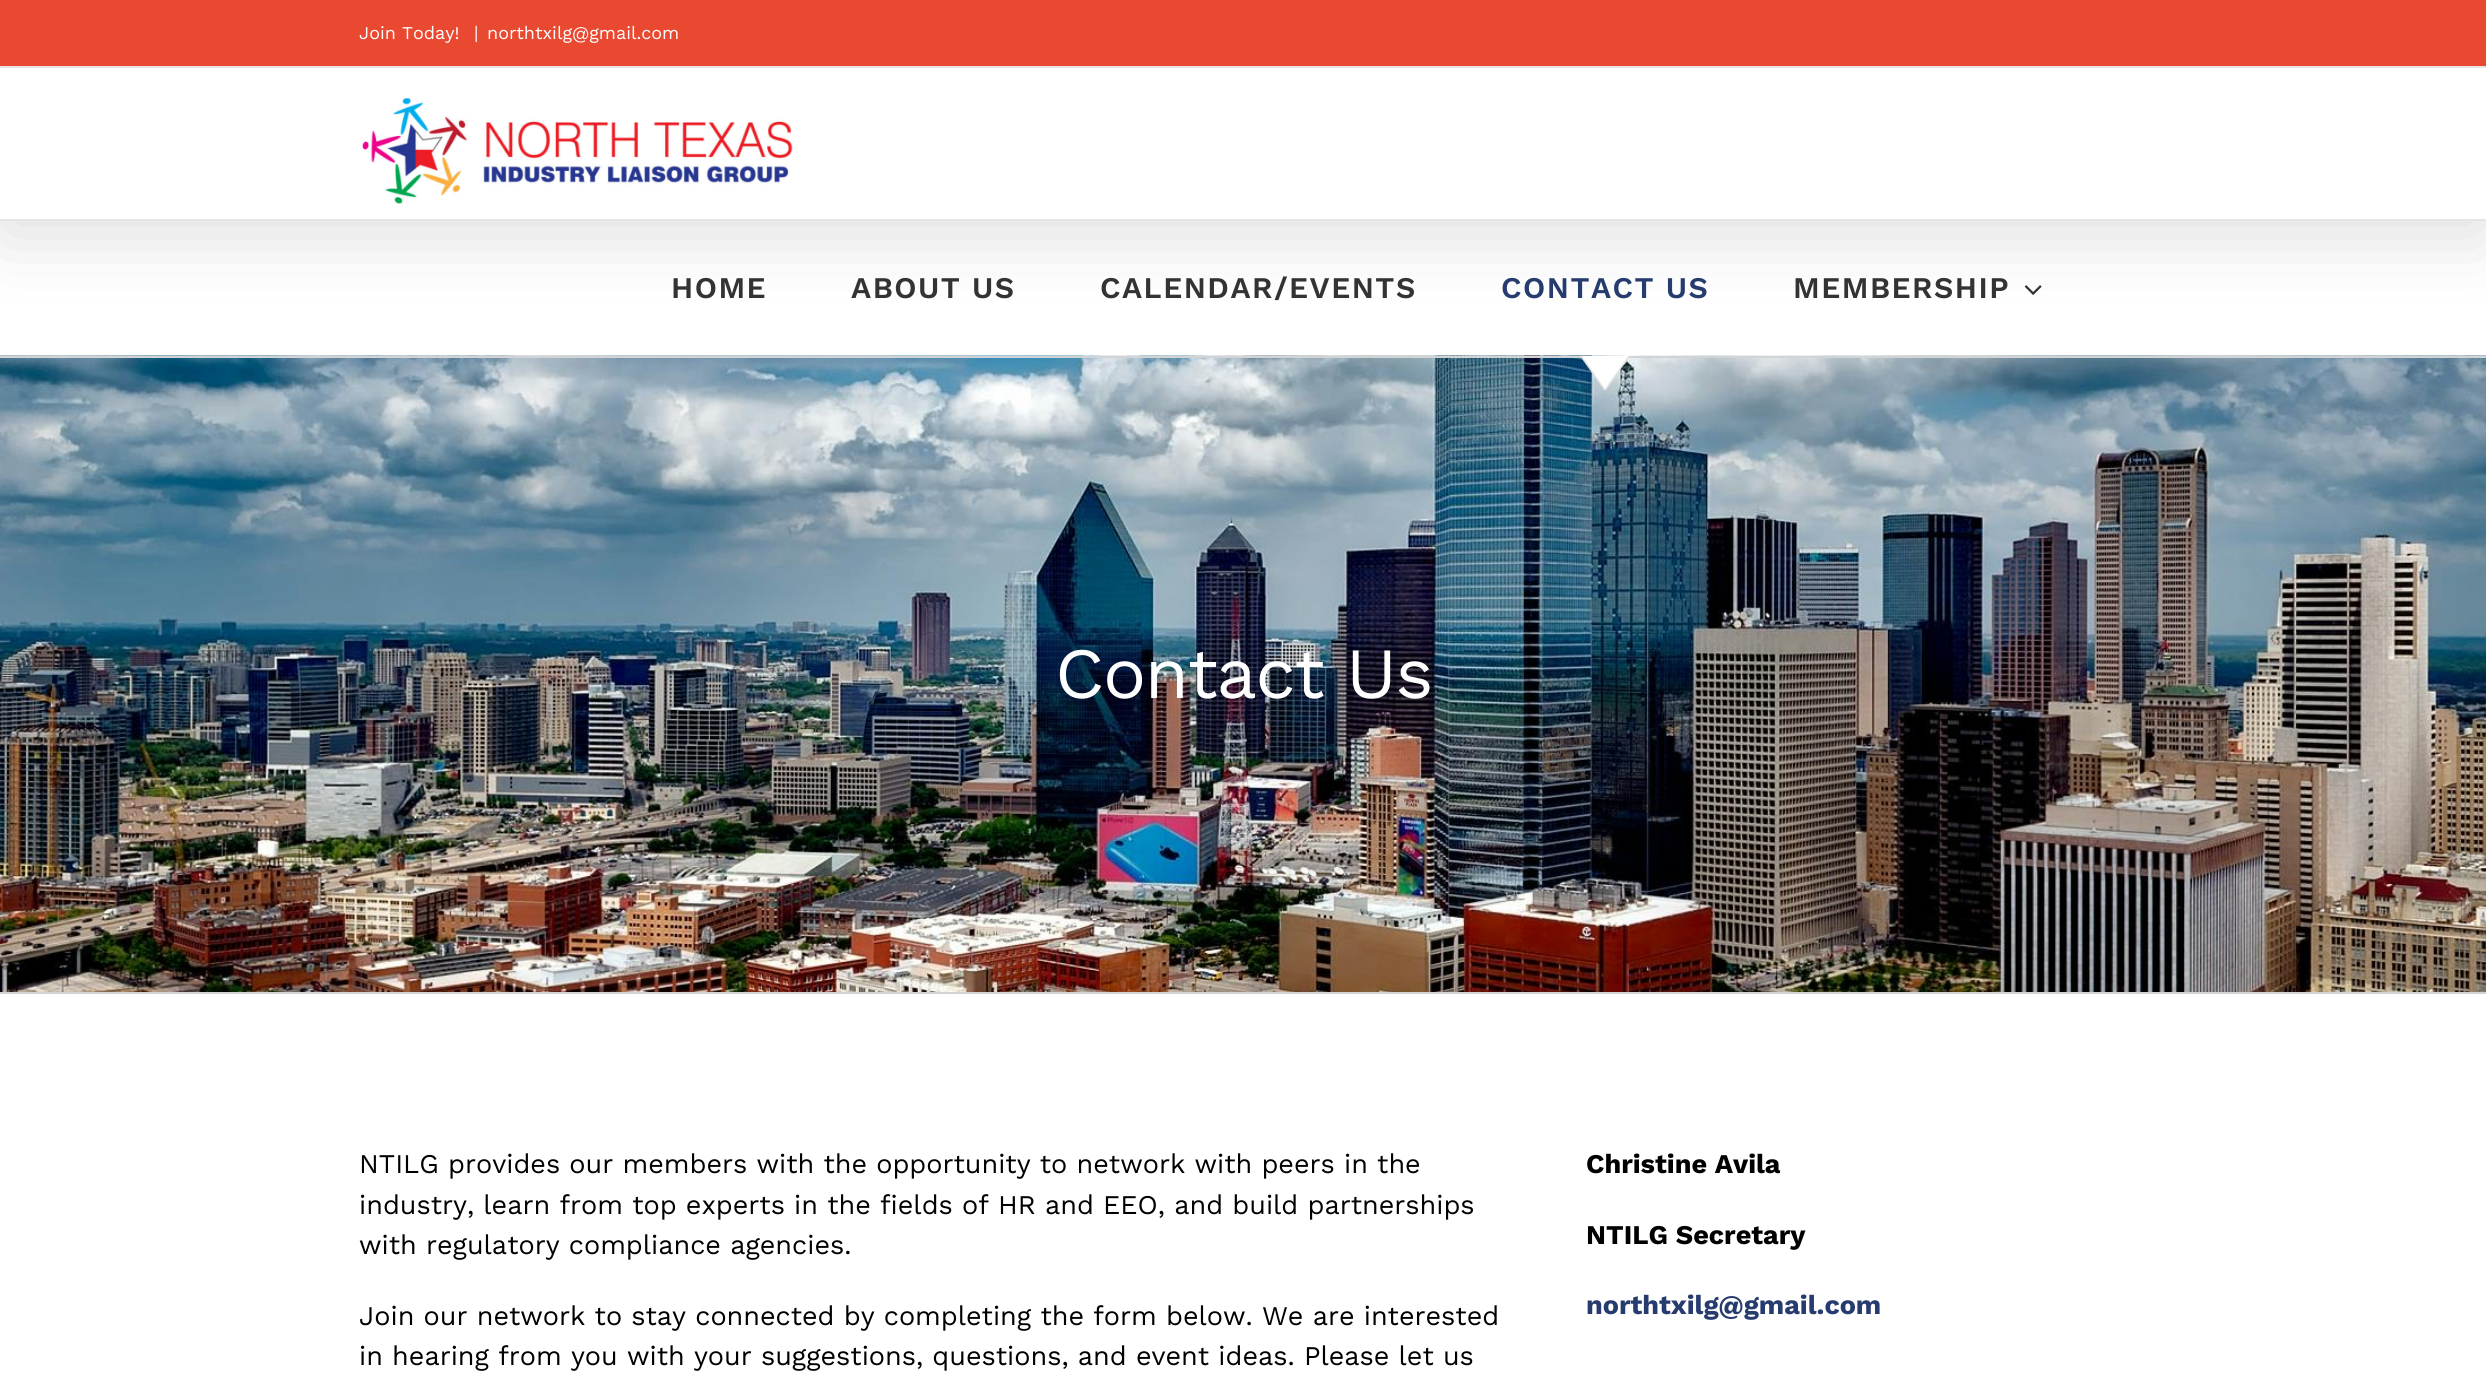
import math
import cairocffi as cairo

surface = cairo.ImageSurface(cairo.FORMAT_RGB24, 2486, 1377)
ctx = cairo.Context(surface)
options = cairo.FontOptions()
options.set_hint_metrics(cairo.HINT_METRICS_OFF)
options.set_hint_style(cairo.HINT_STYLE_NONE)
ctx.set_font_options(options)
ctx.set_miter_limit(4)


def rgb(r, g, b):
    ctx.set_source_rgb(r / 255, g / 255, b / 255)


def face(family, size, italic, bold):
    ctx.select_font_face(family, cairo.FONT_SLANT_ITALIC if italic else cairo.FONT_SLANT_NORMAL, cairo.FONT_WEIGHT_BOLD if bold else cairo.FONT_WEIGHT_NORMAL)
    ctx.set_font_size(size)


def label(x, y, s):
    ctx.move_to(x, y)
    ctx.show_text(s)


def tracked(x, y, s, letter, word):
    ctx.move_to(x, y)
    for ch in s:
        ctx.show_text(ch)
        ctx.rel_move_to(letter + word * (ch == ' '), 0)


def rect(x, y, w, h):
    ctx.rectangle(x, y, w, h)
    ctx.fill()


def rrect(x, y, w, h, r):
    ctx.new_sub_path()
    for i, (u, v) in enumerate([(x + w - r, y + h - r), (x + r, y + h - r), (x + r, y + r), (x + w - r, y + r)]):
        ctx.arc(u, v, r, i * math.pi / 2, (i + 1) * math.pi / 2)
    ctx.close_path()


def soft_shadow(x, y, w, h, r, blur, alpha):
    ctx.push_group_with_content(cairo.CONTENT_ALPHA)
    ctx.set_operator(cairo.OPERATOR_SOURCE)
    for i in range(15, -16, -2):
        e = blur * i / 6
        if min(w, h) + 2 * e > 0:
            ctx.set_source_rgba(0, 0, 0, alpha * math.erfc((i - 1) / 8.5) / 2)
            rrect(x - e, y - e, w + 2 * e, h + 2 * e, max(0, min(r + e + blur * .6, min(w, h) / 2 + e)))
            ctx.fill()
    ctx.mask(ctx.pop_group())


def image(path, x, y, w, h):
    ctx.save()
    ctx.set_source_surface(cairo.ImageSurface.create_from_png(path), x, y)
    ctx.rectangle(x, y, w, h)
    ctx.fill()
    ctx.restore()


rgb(255, 255, 255)
ctx.paint()
rgb(0, 0, 0)
soft_shadow(3, 18, 2481, 215, 0, 37.5, 0.14)
rgb(234, 73, 49)
rect(0, 0, 2486, 66)
rgb(229, 229, 229)
rect(0, 66, 2486, 2)
face('Work Sans', 18, 0, 0)
rgb(255, 255, 255)
label(359, 39, 'Join Today!')
label(474, 39, '|')
label(487, 39, 'northtxilg@gmail.com')
rect(0, 68, 2486, 151)
rgb(229, 229, 229)
rect(0, 219, 2486, 2)
image('image0.png', 362, 98, 431, 106)
face('Work Sans SemiBold', 30, 0, 0)
rgb(51, 51, 51)
tracked(671, 298, 'HOME', 1.5, 0)
tracked(851, 298, 'ABOUT US', 1.5, 0)
tracked(1100, 298, 'CALENDAR/EVENTS', 1.5, 0)
rgb(38, 59, 110)
tracked(1501, 298, 'CONTACT US', 1.5, 0)
image('image2.png', 0, 355, 2486, 637)
rgb(210, 211, 212)
rect(0, 356, 2486, 2)
ctx.save()
ctx.rectangle(1580, 356, 51, 34)
ctx.clip()
rgb(255, 255, 255)
ctx.new_path()
ctx.move_to(1580, 354)
ctx.line_to(1605, 390)
ctx.line_to(1630, 354)
ctx.close_path()
ctx.fill()
ctx.new_path()
ctx.move_to(1579.5, 354)
ctx.line_to(1605, 390)
ctx.line_to(1630.5, 354)
ctx.close_path()
rgb(229, 229, 229)
ctx.set_line_width(1.5)
ctx.stroke()
ctx.restore()
rgb(51, 51, 51)
tracked(1793, 298, 'MEMBERSHIP', 1.5, 0)
image('image1.png', 2024, 285, 18, 10)
rgb(210, 211, 212)
rect(0, 992, 2486, 2)
face('Work Sans', 72, 0, 0)
rgb(255, 255, 255)
tracked(1055, 698, 'Contact Us', -1.5, 0)
face('Work Sans', 27, 0, 0)
rgb(0, 0, 0)
label(359, 1173, 'NTILG provides our members with the opportunity to network with peers in the')
label(359, 1214, 'industry, learn from top experts in the fields of HR and EEO, and build partnerships')
label(359, 1254, 'with regulatory compliance agencies.')
label(359, 1325, 'Join our network to stay connected by completing the form below. We are interested')
label(359, 1365, 'in hearing from you with your suggestions, questions, and event ideas. Please let us')
face('Work Sans', 27, 0, 1)
label(1586, 1173, 'Christine Avila')
label(1586, 1244, 'NTILG Secretary')
rgb(38, 59, 110)
label(1586, 1314, 'northtxilg@gmail.com')
surface.write_to_png('render.png')
